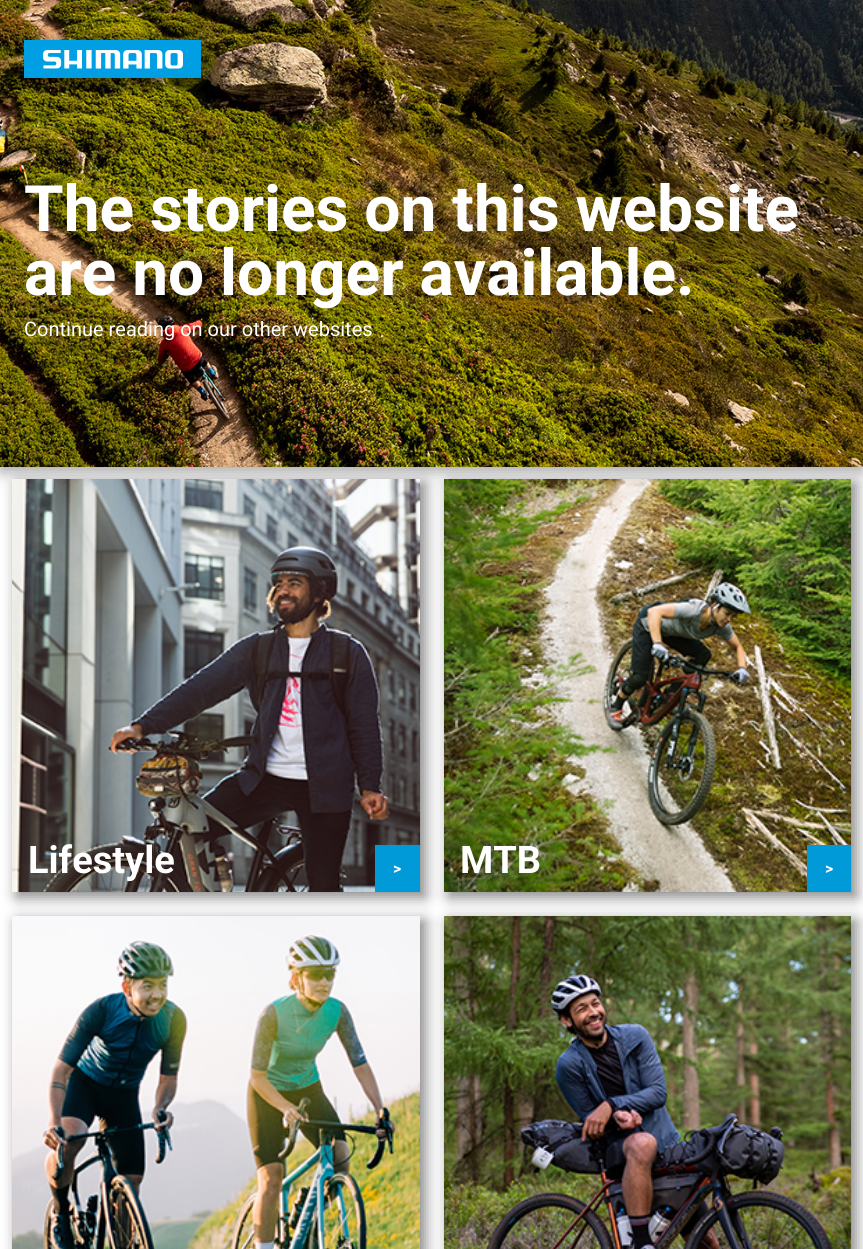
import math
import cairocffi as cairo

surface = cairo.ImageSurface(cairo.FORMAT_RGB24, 863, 1249)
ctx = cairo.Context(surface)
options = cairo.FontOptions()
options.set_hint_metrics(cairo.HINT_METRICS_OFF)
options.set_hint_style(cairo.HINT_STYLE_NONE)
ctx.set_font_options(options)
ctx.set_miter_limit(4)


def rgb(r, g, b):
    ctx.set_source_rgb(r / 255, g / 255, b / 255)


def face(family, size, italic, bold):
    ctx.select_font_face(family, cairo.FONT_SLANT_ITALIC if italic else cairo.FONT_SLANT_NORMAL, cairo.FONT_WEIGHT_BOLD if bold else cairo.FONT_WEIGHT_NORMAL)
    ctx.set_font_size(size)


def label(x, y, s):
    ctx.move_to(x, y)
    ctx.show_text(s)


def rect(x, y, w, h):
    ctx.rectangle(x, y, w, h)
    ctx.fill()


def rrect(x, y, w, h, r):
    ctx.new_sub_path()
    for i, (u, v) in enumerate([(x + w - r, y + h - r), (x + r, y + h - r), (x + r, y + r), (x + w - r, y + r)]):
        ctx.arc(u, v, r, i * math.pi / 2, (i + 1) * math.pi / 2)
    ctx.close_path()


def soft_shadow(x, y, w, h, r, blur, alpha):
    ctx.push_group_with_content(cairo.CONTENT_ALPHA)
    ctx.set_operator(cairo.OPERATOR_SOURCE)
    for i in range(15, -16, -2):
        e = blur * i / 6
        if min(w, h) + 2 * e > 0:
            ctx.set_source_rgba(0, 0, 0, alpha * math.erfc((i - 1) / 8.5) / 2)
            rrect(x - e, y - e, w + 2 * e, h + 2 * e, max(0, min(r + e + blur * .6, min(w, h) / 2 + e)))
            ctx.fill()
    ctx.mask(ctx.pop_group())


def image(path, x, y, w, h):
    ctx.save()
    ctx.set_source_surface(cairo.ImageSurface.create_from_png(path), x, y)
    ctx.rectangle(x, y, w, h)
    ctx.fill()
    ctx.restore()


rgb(255, 255, 255)
ctx.paint()
rgb(0, 0, 0)
soft_shadow(0, 5, 863, 467, 0, 7.5, 0.35)
image('image0.png', 0, 0, 863, 467)
soft_shadow(29, 45, 177, 38, 0, 7.5, 0.5)
image('image1.png', 24, 40, 177, 38)
face('Roboto', 64, 0, 1)
rgb(255, 255, 255)
label(24, 231, 'The stories on this website')
label(24, 295, 'are no longer available.')
face('Roboto', 20, 0, 0)
label(24, 336, 'Continue reading on our other websites')
rgb(0, 0, 0)
soft_shadow(17, 484, 408, 413, 0, 7.5, 0.5)
image('image2.png', 12, 479, 408, 413)
face('Roboto', 38, 0, 1)
rgb(255, 255, 255)
label(28, 873, 'Lifestyle')
rgb(0, 154, 217)
rect(375, 845, 45, 47)
face('Roboto', 16, 0, 1)
rgb(255, 255, 255)
label(393, 874, '>')
rgb(0, 0, 0)
soft_shadow(449, 484, 407, 413, 0, 7.5, 0.5)
image('image3.png', 444, 479, 407, 413)
face('Roboto', 38, 0, 1)
rgb(255, 255, 255)
label(460, 873, 'MTB')
rgb(0, 154, 217)
rect(807, 845, 44, 47)
face('Roboto', 16, 0, 1)
rgb(255, 255, 255)
label(825, 874, '>')
rgb(0, 0, 0)
soft_shadow(17, 921, 408, 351, 0, 7.5, 0.5)
image('image4.png', 12, 916, 408, 333)
soft_shadow(449, 921, 407, 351, 0, 7.5, 0.5)
image('image5.png', 444, 916, 407, 333)
surface.write_to_png('render.png')
